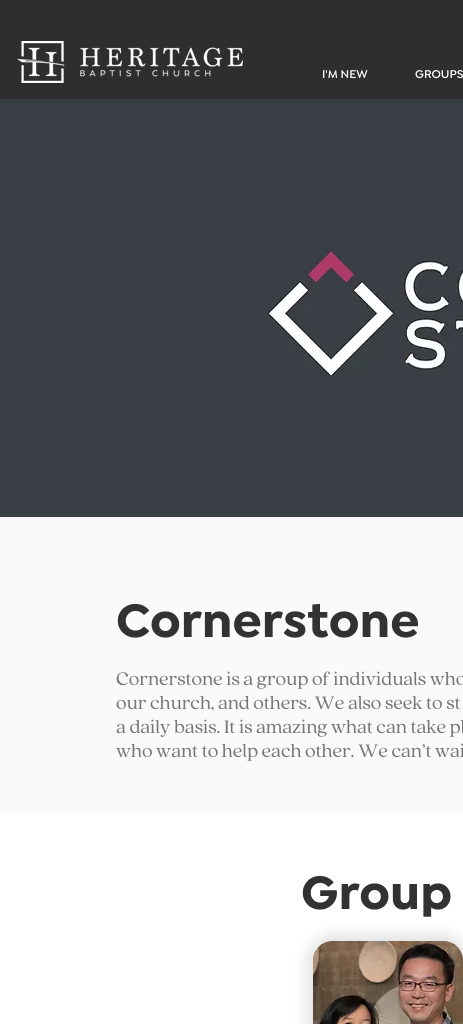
import math
import cairocffi as cairo

surface = cairo.ImageSurface(cairo.FORMAT_RGB24, 463, 1024)
ctx = cairo.Context(surface)
options = cairo.FontOptions()
options.set_hint_metrics(cairo.HINT_METRICS_OFF)
options.set_hint_style(cairo.HINT_STYLE_NONE)
ctx.set_font_options(options)
ctx.set_miter_limit(4)


def rgb(r, g, b):
    ctx.set_source_rgb(r / 255, g / 255, b / 255)


def face(family, size, italic, bold):
    ctx.select_font_face(family, cairo.FONT_SLANT_ITALIC if italic else cairo.FONT_SLANT_NORMAL, cairo.FONT_WEIGHT_BOLD if bold else cairo.FONT_WEIGHT_NORMAL)
    ctx.set_font_size(size)


def label(x, y, s):
    ctx.move_to(x, y)
    ctx.show_text(s)


def rect(x, y, w, h):
    ctx.rectangle(x, y, w, h)
    ctx.fill()


def rrect(x, y, w, h, r):
    ctx.new_sub_path()
    for i, (u, v) in enumerate([(x + w - r, y + h - r), (x + r, y + h - r), (x + r, y + r), (x + w - r, y + r)]):
        ctx.arc(u, v, r, i * math.pi / 2, (i + 1) * math.pi / 2)
    ctx.close_path()


def soft_shadow(x, y, w, h, r, blur, alpha):
    ctx.push_group_with_content(cairo.CONTENT_ALPHA)
    ctx.set_operator(cairo.OPERATOR_SOURCE)
    for i in range(15, -16, -2):
        e = blur * i / 6
        if min(w, h) + 2 * e > 0:
            ctx.set_source_rgba(0, 0, 0, alpha * math.erfc((i - 1) / 8.5) / 2)
            rrect(x - e, y - e, w + 2 * e, h + 2 * e, max(0, min(r + e + blur * .6, min(w, h) / 2 + e)))
            ctx.fill()
    ctx.mask(ctx.pop_group())


def image(path, x, y, w, h):
    ctx.save()
    ctx.set_source_surface(cairo.ImageSurface.create_from_png(path), x, y)
    ctx.rectangle(x, y, w, h)
    ctx.fill()
    ctx.restore()


rgb(57, 61, 68)
ctx.paint()
rgb(47, 46, 46)
rect(0, 0, 463, 99)
image('image0.png', 17, 41, 226, 42)
face('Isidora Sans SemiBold', 12, 0, 0)
rgb(255, 255, 255)
label(322, 78, 'I\'M NEW')
label(415, 78, 'GROUPS')
image('image1.png', 268, 250, 195, 129)
rgb(250, 250, 250)
rect(0, 517, 463, 295)
face('Isidora Sans', 50, 0, 1)
rgb(51, 50, 50)
label(116, 637, 'Cornerstone')
face('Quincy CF', 20, 0, 0)
rgb(118, 118, 118)
label(116, 685, 'Cornerstone is a group of individuals who')
label(116, 709, 'our church, and others. We also seek to st')
label(116, 733, 'a daily basis. It is amazing what can take pl')
label(116, 757, 'who want to help each other. We can’t wai')
rgb(255, 255, 255)
rect(0, 812, 463, 212)
face('Isidora Sans', 50, 0, 1)
rgb(51, 50, 50)
label(301, 909, 'Group')
rgb(51, 50, 50)
soft_shadow(307, 935, 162, 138, 26, 7.5, 0.15)
rgb(118, 118, 118)
rrect(313, 941, 150, 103, 20)
ctx.fill()
image('image2.png', 313, 941, 150, 83)
surface.write_to_png('render.png')
